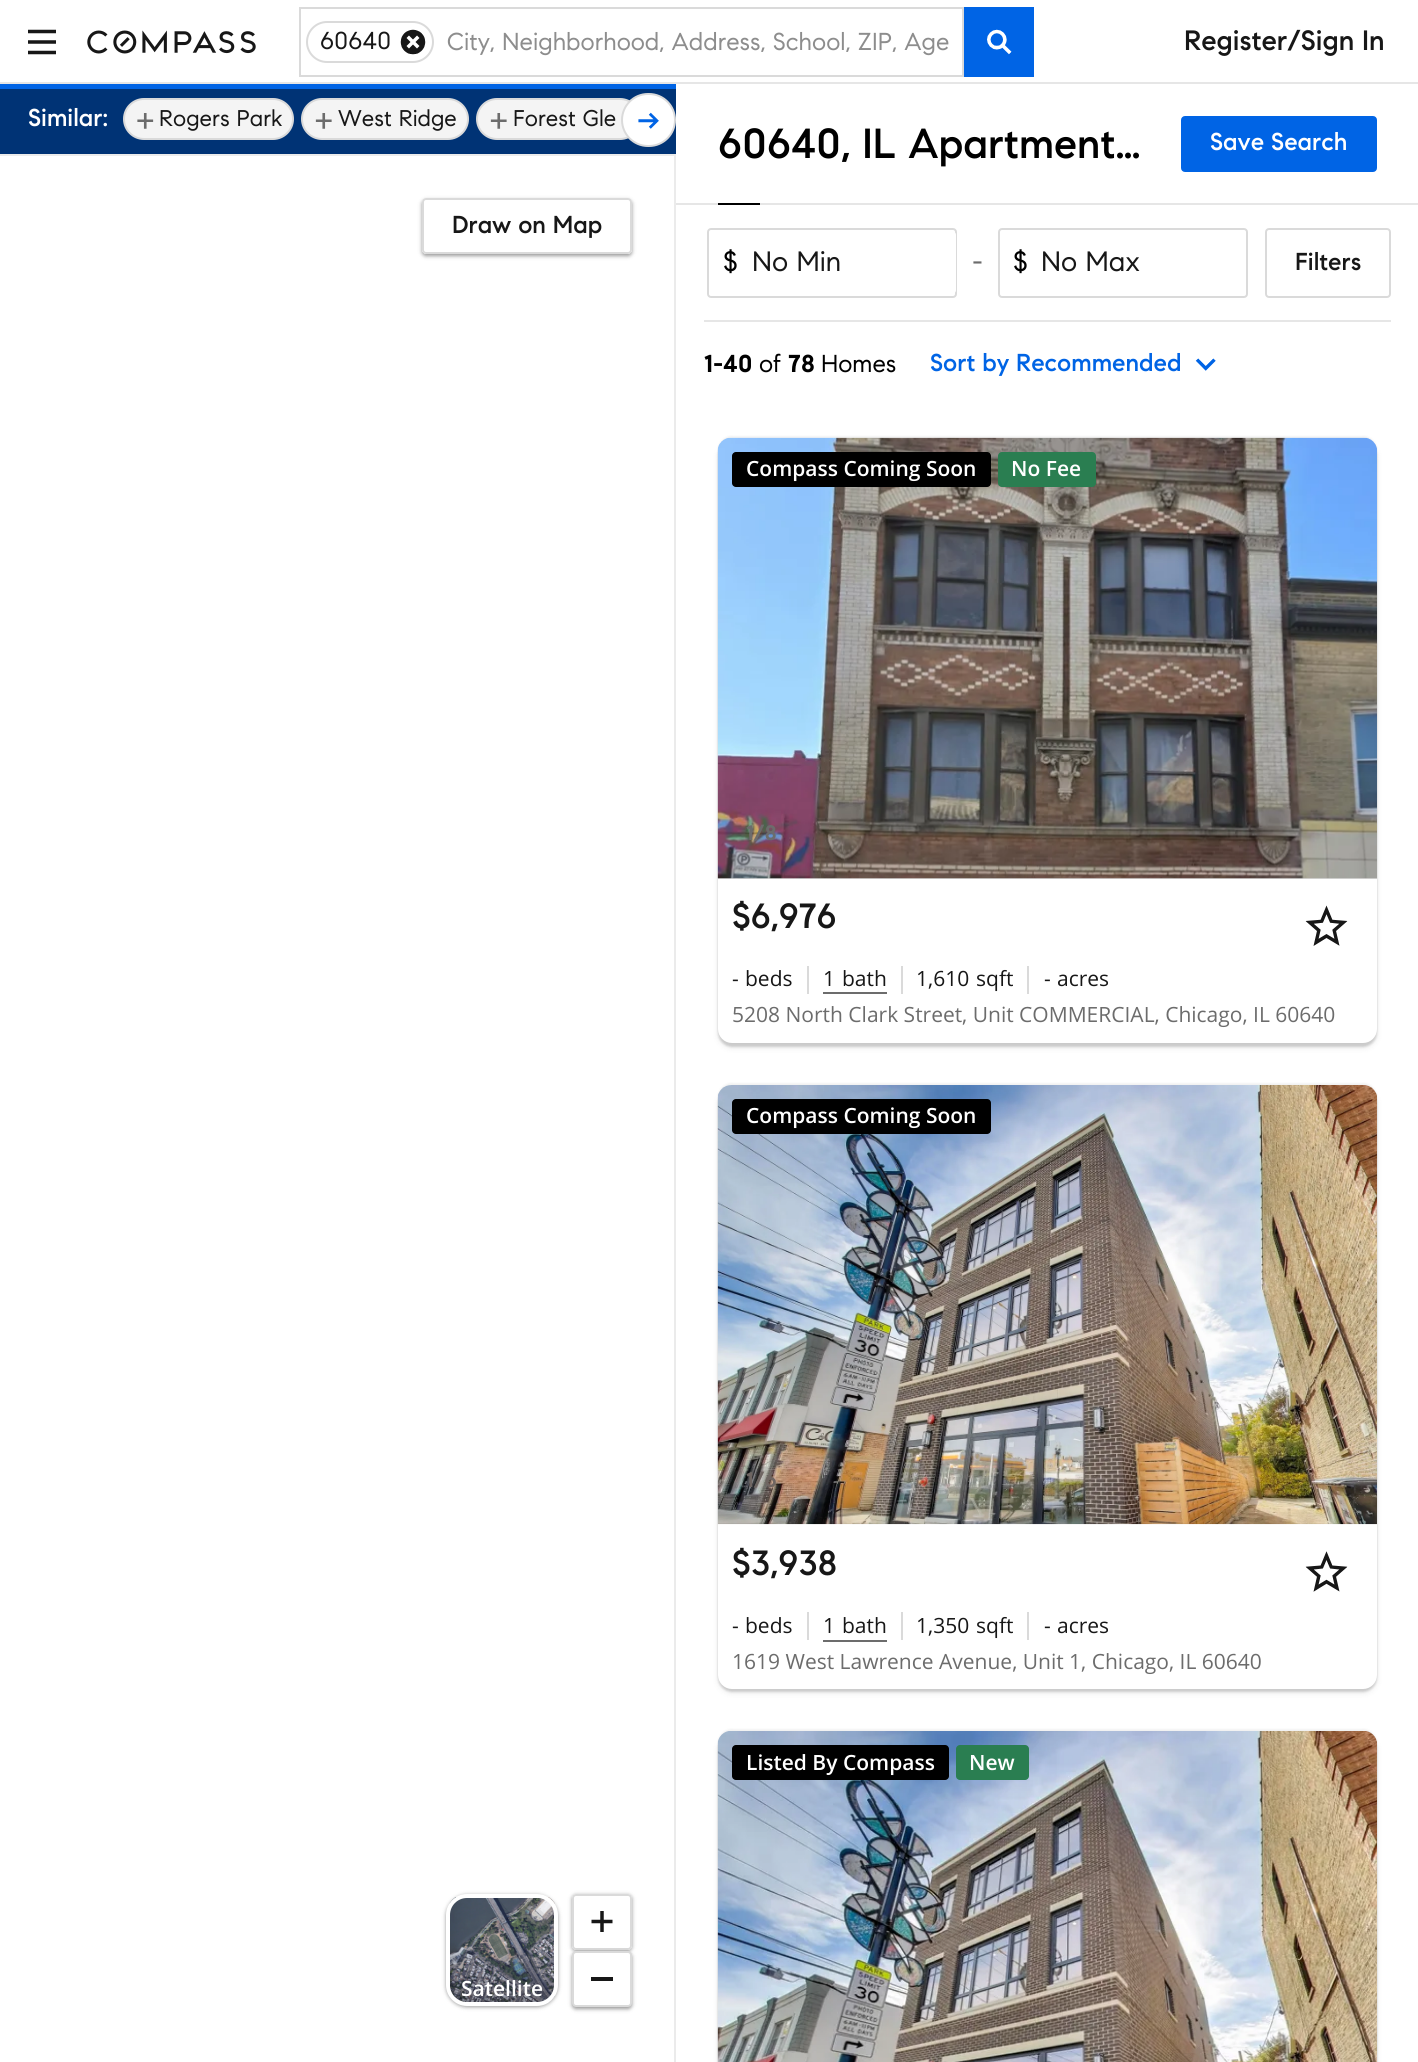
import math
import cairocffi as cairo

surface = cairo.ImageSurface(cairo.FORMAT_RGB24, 1418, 2062)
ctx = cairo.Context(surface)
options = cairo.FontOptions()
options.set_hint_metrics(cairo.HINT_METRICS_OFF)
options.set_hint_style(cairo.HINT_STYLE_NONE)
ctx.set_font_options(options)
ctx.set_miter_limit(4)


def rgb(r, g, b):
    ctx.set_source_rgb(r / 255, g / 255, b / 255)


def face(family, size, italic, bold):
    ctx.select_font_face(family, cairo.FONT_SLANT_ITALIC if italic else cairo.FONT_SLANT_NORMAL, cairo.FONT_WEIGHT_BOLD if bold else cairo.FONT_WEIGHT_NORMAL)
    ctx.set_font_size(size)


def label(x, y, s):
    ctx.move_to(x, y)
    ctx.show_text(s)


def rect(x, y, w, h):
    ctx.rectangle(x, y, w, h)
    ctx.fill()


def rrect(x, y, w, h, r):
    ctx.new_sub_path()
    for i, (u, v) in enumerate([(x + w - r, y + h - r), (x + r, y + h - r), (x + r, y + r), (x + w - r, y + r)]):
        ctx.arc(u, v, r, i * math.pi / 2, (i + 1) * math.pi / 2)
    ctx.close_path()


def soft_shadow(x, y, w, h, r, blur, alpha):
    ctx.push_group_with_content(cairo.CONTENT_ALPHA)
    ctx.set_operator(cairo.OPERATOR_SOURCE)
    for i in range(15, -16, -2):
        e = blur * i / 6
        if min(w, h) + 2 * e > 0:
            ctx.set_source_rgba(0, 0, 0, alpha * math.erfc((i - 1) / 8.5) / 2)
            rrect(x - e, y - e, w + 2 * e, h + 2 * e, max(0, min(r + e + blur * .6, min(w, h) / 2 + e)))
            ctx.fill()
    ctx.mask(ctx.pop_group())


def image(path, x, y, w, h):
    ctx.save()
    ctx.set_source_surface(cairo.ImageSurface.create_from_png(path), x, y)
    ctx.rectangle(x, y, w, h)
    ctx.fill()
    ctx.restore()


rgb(255, 255, 255)
ctx.paint()
rgb(230, 230, 230)
rect(0, 82, 1418, 2)
image('image0.png', 28, 29, 28, 26)
image('image1.png', 87, 30, 169, 24)
ctx.rectangle(300, 8, 663, 68)
rgb(218, 218, 218)
ctx.stroke()
rrect(307, 22, 126, 40, 20)
ctx.stroke()
face('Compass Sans', 24.5, 0, 0)
rgb(23, 23, 23)
label(320, 49, '60640')
image('image2.png', 400, 29, 26, 26)
rgb(141, 141, 141)
label(447, 50, 'City, Neighborhood, Address, School, ZIP, Age')
rgb(0, 100, 229)
rect(964, 7, 70, 70)
image('image3.png', 987, 29, 25, 26)
face('Compass Sans Medium', 28, 0, 0)
rgb(23, 23, 23)
label(1184, 50, 'Register/Sign In')
rgb(0, 100, 229)
rect(0, 84, 676, 5)
rgb(0, 51, 117)
rect(0, 89, 676, 65)
face('Compass Sans Medium', 24.5, 0, 0)
rgb(255, 255, 255)
label(28, 126, 'Similar:')
rgb(244, 244, 244)
rrect(124, 99, 169, 40, 20)
ctx.fill_preserve()
rgb(218, 218, 218)
ctx.stroke()
image('image4.png', 137, 113, 17, 16)
face('Compass Sans', 22.75, 0, 0)
rgb(23, 23, 23)
label(159, 126, 'Rogers Park')
rgb(244, 244, 244)
rrect(302, 99, 166, 40, 20)
ctx.fill_preserve()
rgb(218, 218, 218)
ctx.stroke()
image('image5.png', 315, 113, 17, 16)
rgb(23, 23, 23)
label(338, 126, 'West Ridge')
rgb(244, 244, 244)
rrect(477, 99, 163, 40, 20)
ctx.fill_preserve()
rgb(218, 218, 218)
ctx.stroke()
image('image5.png', 490, 113, 17, 16)
rgb(23, 23, 23)
label(513, 126, 'Forest Gle')
ctx.save()
ctx.rectangle(28, 86, 637, 68)
ctx.clip()
rrect(649, 99, 146, 40, 20)
rgb(218, 218, 218)
ctx.stroke()
ctx.restore()
rgb(255, 255, 255)
rrect(622, 94, 53, 52, 26)
ctx.fill_preserve()
rgb(218, 218, 218)
ctx.stroke()
image('image6.png', 638, 112, 21, 17)
rgb(235, 235, 235)
ctx.new_path()
ctx.move_to(0, 154)
ctx.line_to(676, 154)
ctx.line_to(674, 156)
ctx.line_to(0, 156)
ctx.close_path()
ctx.fill()
ctx.set_source_rgba(0, 0, 0, 0.08)
ctx.new_path()
ctx.move_to(676, 154)
ctx.line_to(676, 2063)
ctx.line_to(674, 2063)
ctx.line_to(674, 156)
ctx.close_path()
ctx.fill()
ctx.save()
ctx.set_fill_rule(cairo.FILL_RULE_EVEN_ODD)
ctx.new_path()
ctx.move_to(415, 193)
ctx.line_to(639, 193)
ctx.line_to(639, 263)
ctx.line_to(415, 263)
ctx.close_path()
ctx.move_to(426, 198)
ctx.line_to(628, 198)
ctx.curve_to(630, 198, 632, 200, 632, 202)
ctx.line_to(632, 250)
ctx.curve_to(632, 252, 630, 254, 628, 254)
ctx.line_to(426, 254)
ctx.curve_to(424, 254, 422, 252, 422, 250)
ctx.line_to(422, 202)
ctx.curve_to(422, 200, 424, 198, 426, 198)
ctx.close_path()
ctx.clip()
rgb(0, 0, 0)
soft_shadow(422, 200, 210, 56, 4, 2, 0.4)
ctx.restore()
rrect(423, 199, 208, 54, 3)
rgb(218, 218, 218)
ctx.stroke()
face('Compass Sans Medium', 24.5, 0, 0)
rgb(23, 23, 23)
label(452, 233, 'Draw on Map')
rgb(0, 0, 0)
soft_shadow(446, 1895, 112, 112, 21, 2, 0.4)
image('image7.png', 449, 1897, 106, 105)
rrect(448, 1896, 108, 108, 19)
rgb(255, 255, 255)
ctx.set_line_width(4)
ctx.stroke()
face('Open Sans SemiBold', 21, 0, 0)
label(461, 1996, 'Satellite')
ctx.save()
ctx.set_fill_rule(cairo.FILL_RULE_EVEN_ODD)
ctx.new_path()
ctx.move_to(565, 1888)
ctx.line_to(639, 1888)
ctx.line_to(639, 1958)
ctx.line_to(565, 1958)
ctx.close_path()
ctx.move_to(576, 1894)
ctx.line_to(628, 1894)
ctx.curve_to(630, 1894, 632, 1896, 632, 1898)
ctx.line_to(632, 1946)
ctx.curve_to(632, 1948, 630, 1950, 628, 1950)
ctx.line_to(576, 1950)
ctx.curve_to(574, 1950, 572, 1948, 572, 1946)
ctx.line_to(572, 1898)
ctx.curve_to(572, 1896, 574, 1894, 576, 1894)
ctx.close_path()
ctx.clip()
rgb(0, 0, 0)
soft_shadow(572, 1895, 60, 56, 4, 2, 0.4)
ctx.restore()
rrect(573, 1895, 58, 54, 3)
rgb(218, 218, 218)
ctx.set_line_width(2)
ctx.stroke()
image('image8.png', 591, 1911, 22, 21)
rgb(0, 0, 0)
soft_shadow(572, 1953, 60, 56, 4, 2, 0.4)
rgb(255, 255, 255)
rrect(573, 1952, 58, 54, 3)
ctx.fill_preserve()
rgb(218, 218, 218)
ctx.stroke()
rgb(23, 23, 23)
rect(591, 1977, 22, 4)
rgb(230, 230, 230)
rect(676, 203, 742, 2)
face('Compass Sans Medium', 42, 0, 0)
rgb(0, 0, 0)
label(718, 158, '60640, IL Apartment…')
rgb(0, 100, 229)
rrect(1182, 117, 194, 54, 3)
ctx.fill_preserve()
ctx.stroke()
face('Compass Sans Medium', 24.5, 0, 0)
rgb(255, 255, 255)
label(1210, 150, 'Save Search')
rgb(0, 0, 0)
rect(718, 203, 42, 2)
rrect(708, 229, 248, 68, 3)
rgb(218, 218, 218)
ctx.stroke()
face('Compass Sans', 28, 0, 0)
rgb(0, 0, 0)
label(723, 271, '$')
rgb(255, 255, 255)
rrect(737, 231, 219, 63, 4)
ctx.fill()
rgb(23, 23, 23)
label(752, 271, 'No Min')
rgb(108, 108, 108)
label(972, 271, '-')
rrect(999, 229, 248, 68, 3)
rgb(218, 218, 218)
ctx.stroke()
rgb(0, 0, 0)
label(1013, 271, '$')
rgb(23, 23, 23)
label(1041, 271, 'No Max')
rrect(1266, 229, 124, 68, 3)
rgb(218, 218, 218)
ctx.stroke()
face('Compass Sans Medium', 24.5, 0, 0)
rgb(23, 23, 23)
label(1295, 270, 'Filters')
rgb(230, 230, 230)
rect(704, 320, 687, 2)
face('Compass Sans', 24.5, 0, 1)
rgb(0, 0, 0)
label(704, 372, '1-40')
face('Compass Sans', 24.5, 0, 0)
label(759, 372, 'of')
face('Compass Sans', 24.5, 0, 1)
label(788, 372, '78')
face('Compass Sans', 24.5, 0, 0)
label(821, 372, 'Homes')
face('Compass Sans Medium', 24.5, 0, 0)
rgb(0, 100, 229)
label(930, 371, 'Sort by Recommended')
image('image9.png', 1195, 358, 21, 13)
rgb(0, 0, 0)
soft_shadow(718, 436, 659, 605, 14, 1, 0.06)
soft_shadow(718, 441, 659, 606, 14, 1, 0.14)
soft_shadow(719, 445, 657, 602, 12, 3.5, 0.1)
rgb(255, 255, 255)
rrect(718, 438, 659, 605, 14)
ctx.fill()
rgb(218, 218, 218)
ctx.new_path()
ctx.move_to(732, 438)
ctx.line_to(1363, 438)
ctx.curve_to(1370.5, 438, 1377, 444.5, 1377, 452)
ctx.line_to(1377, 879)
ctx.line_to(718, 879)
ctx.line_to(718, 452)
ctx.curve_to(718, 444.5, 724.5, 438, 732, 438)
ctx.close_path()
ctx.fill()
image('image10.png', 717, 437, 660, 442)
rgb(0, 0, 0)
rrect(732, 452, 259, 35, 4)
ctx.fill()
face('Open Sans SemiBold', 21, 0, 0)
rgb(255, 255, 255)
label(746, 476, 'Compass Coming Soon')
rgb(42, 126, 81)
rrect(998, 452, 98, 35, 4)
ctx.fill()
rgb(255, 255, 255)
label(1011, 476, 'No Fee')
face('Compass Sans', 21, 0, 1)
rgb(108, 108, 108)
label(746, 840, '1/8')
face('Compass Sans Medium', 35, 0, 0)
rgb(23, 23, 23)
label(732, 928, '$6,976')
image('image11.png', 1305, 905, 43, 41)
face('Open Sans', 21, 0, 0)
label(732, 986, '-')
label(745, 986, 'beds')
rgb(218, 218, 218)
rect(807, 966, 2, 28)
rgb(108, 108, 108)
rect(823, 992, 64, 2)
rgb(23, 23, 23)
label(823, 986, '1')
label(842, 986, 'bath')
rgb(218, 218, 218)
rect(901, 966, 2, 28)
rgb(23, 23, 23)
label(916, 986, '1,610')
label(976, 986, 'sqft')
rgb(218, 218, 218)
rect(1027, 966, 2, 28)
rgb(23, 23, 23)
label(1044, 986, '-')
label(1057, 986, 'acres')
rgb(108, 108, 108)
label(732, 1022, '5208 North Clark Street, Unit COMMERCIAL, Chicago, IL 60640')
rgb(0, 0, 0)
soft_shadow(718, 1083, 659, 604, 14, 1, 0.06)
soft_shadow(718, 1089, 659, 603, 14, 1, 0.14)
soft_shadow(719, 1092, 657, 600, 12, 3.5, 0.1)
rgb(255, 255, 255)
rrect(718, 1085, 659, 604, 14)
ctx.fill()
image('image12.png', 717, 1085, 660, 440)
rgb(0, 0, 0)
rrect(732, 1099, 259, 35, 4)
ctx.fill()
face('Open Sans SemiBold', 21, 0, 0)
rgb(255, 255, 255)
label(746, 1123, 'Compass Coming Soon')
face('Compass Sans', 21, 0, 1)
rgb(111, 102, 98)
label(746, 1487, '1/6')
face('Compass Sans Medium', 35, 0, 0)
rgb(23, 23, 23)
label(732, 1575, '$3,938')
image('image13.png', 1305, 1551, 43, 41)
face('Open Sans', 21, 0, 0)
label(732, 1633, '-')
label(745, 1633, 'beds')
rgb(218, 218, 218)
rect(807, 1612, 2, 28)
rgb(108, 108, 108)
rect(823, 1640, 64, 2)
rgb(23, 23, 23)
label(823, 1633, '1')
label(842, 1633, 'bath')
rgb(218, 218, 218)
rect(901, 1612, 2, 28)
rgb(23, 23, 23)
label(916, 1633, '1,350')
label(976, 1633, 'sqft')
rgb(218, 218, 218)
rect(1027, 1612, 2, 28)
rgb(23, 23, 23)
label(1044, 1633, '-')
label(1057, 1633, 'acres')
rgb(108, 108, 108)
label(732, 1669, '1619 West Lawrence Avenue, Unit 1, Chicago, IL 60640')
rgb(0, 0, 0)
soft_shadow(718, 1729, 659, 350, 14, 1, 0.06)
soft_shadow(718, 1734, 659, 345, 14, 1, 0.14)
soft_shadow(719, 1738, 657, 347, 12, 3.5, 0.1)
image('image14.png', 717, 1731, 660, 331)
rgb(0, 0, 0)
rrect(732, 1745, 217, 35, 4)
ctx.fill()
face('Open Sans SemiBold', 21, 0, 0)
rgb(255, 255, 255)
label(746, 1770, 'Listed By Compass')
rgb(42, 126, 81)
rrect(956, 1745, 73, 35, 4)
ctx.fill()
rgb(255, 255, 255)
label(969, 1770, 'New')
surface.write_to_png('render.png')
